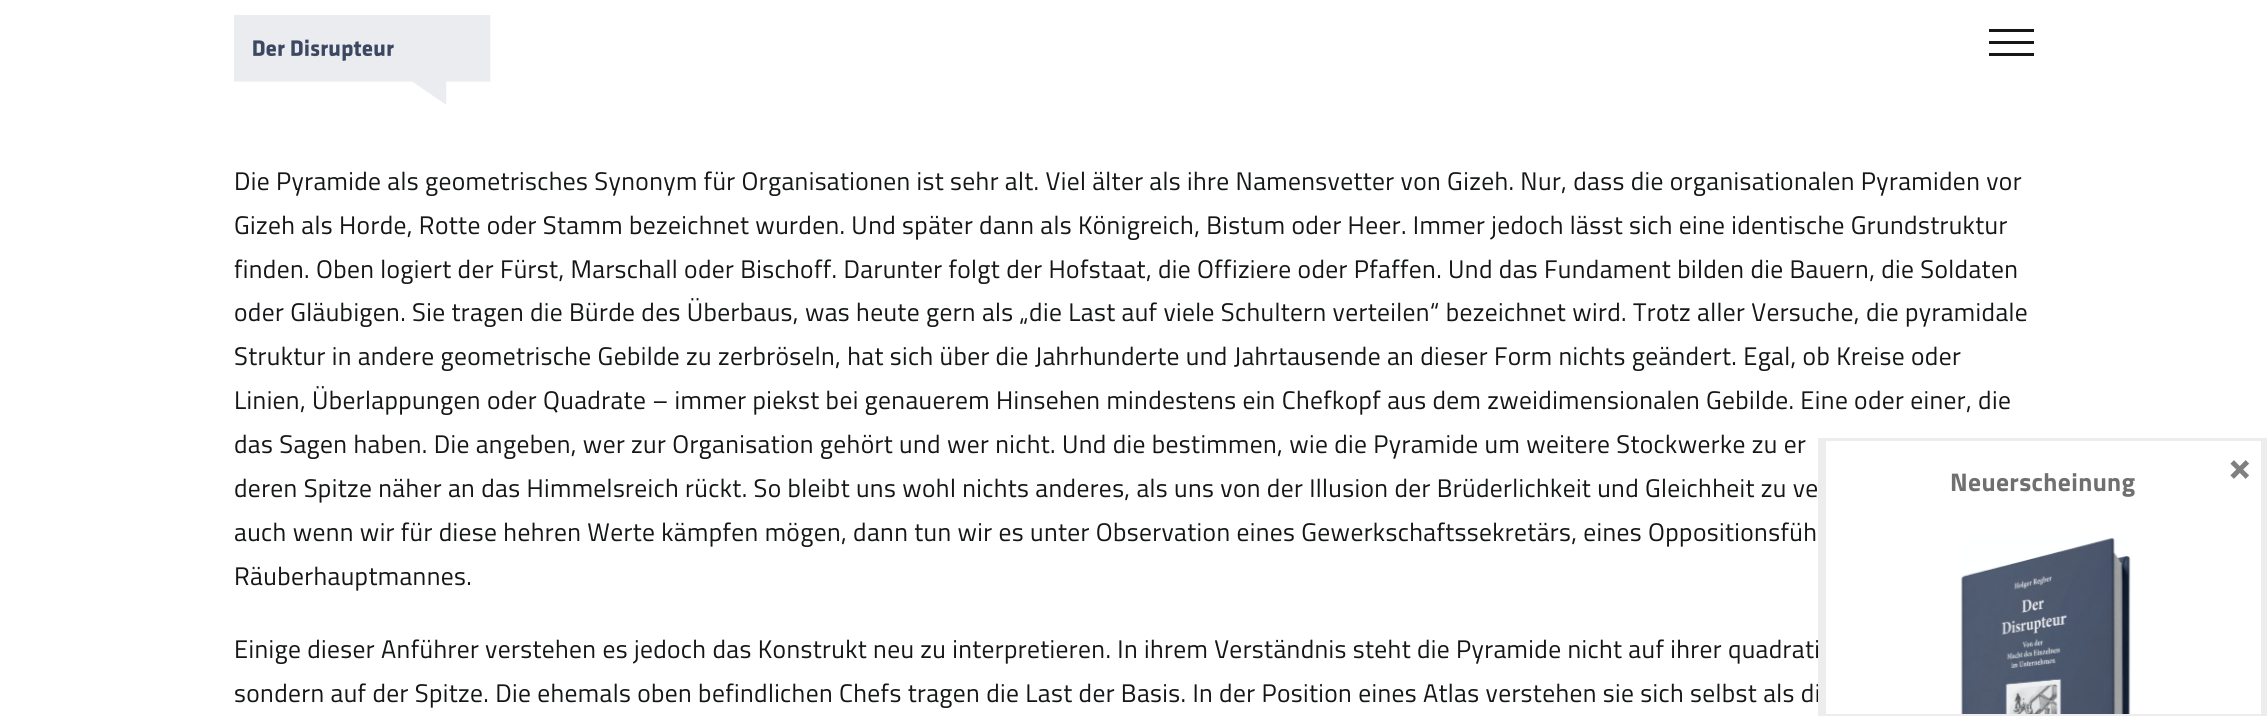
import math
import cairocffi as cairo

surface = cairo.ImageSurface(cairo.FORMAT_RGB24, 2267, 716)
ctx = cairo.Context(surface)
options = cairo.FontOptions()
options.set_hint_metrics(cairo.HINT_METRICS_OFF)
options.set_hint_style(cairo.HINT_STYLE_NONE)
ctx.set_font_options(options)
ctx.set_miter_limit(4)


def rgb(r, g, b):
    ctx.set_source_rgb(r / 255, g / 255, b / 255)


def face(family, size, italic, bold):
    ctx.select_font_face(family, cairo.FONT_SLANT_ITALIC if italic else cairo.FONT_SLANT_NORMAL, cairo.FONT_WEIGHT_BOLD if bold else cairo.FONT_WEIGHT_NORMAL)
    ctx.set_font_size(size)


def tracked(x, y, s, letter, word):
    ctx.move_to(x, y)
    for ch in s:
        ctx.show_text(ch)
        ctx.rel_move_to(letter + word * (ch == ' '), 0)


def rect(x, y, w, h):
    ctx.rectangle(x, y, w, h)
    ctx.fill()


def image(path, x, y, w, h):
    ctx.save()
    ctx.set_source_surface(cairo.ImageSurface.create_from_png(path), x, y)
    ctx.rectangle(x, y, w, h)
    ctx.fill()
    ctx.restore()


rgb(255, 255, 255)
ctx.paint()
image('image0.png', 234, 15, 257, 90)
rgb(20, 22, 23)
rect(1989, 29, 45, 3)
rect(1989, 41, 45, 3)
rect(1989, 53, 45, 3)
face('Titillium Web', 25.5, 0, 0)
tracked(234, 190, 'Die Pyramide als geometrisches Synonym für Organisationen ist sehr alt. Viel älter als ihre Namensvetter von Gizeh. Nur, dass die organisationalen Pyramiden vor', 0.38, 0)
tracked(234, 234, 'Gizeh als Horde, Rotte oder Stamm bezeichnet wurden. Und später dann als Königreich, Bistum oder Heer. Immer jedoch lässt sich eine identische Grundstruktur', 0.38, 0)
tracked(234, 278, 'finden. Oben logiert der Fürst, Marschall oder Bischoff. Darunter folgt der Hofstaat, die Offiziere oder Pfaffen. Und das Fundament bilden die Bauern, die Soldaten', 0.38, 0)
tracked(234, 321, 'oder Gläubigen. Sie tragen die Bürde des Überbaus, was heute gern als „die Last auf viele Schultern verteilen“ bezeichnet wird. Trotz aller Versuche, die pyramidale', 0.38, 0)
tracked(234, 365, 'Struktur in andere geometrische Gebilde zu zerbröseln, hat sich über die Jahrhunderte und Jahrtausende an dieser Form nichts geändert. Egal, ob Kreise oder', 0.38, 0)
tracked(234, 409, 'Linien, Überlappungen oder Quadrate – immer piekst bei genauerem Hinsehen mindestens ein Chefkopf aus dem zweidimensionalen Gebilde. Eine oder einer, die', 0.38, 0)
tracked(234, 453, 'das Sagen haben. Die angeben, wer zur Organisation gehört und wer nicht. Und die bestimmen, wie die Pyramide um weitere Stockwerke zu er', 0.38, 0)
tracked(234, 497, 'deren Spitze näher an das Himmelsreich rückt. So bleibt uns wohl nichts anderes, als uns von der Illusion der Brüderlichkeit und Gleichheit zu ve', 0.38, 0)
tracked(234, 541, 'auch wenn wir für diese hehren Werte kämpfen mögen, dann tun wir es unter Observation eines Gewerkschaftssekretärs, eines Oppositionsfüh', 0.38, 0)
tracked(234, 585, 'Räuberhauptmannes.', 0.38, 0)
tracked(234, 658, 'Einige dieser Anführer verstehen es jedoch das Konstrukt neu zu interpretieren. In ihrem Verständnis steht die Pyramide nicht auf ihrer quadrati', 0.38, 0)
tracked(234, 702, 'sondern auf der Spitze. Die ehemals oben befindlichen Chefs tragen die Last der Basis. In der Position eines Atlas verstehen sie sich selbst als di', 0.38, 0)
rgb(237, 237, 237)
rect(1818, 438, 449, 3)
rect(2261, 438, 6, 278)
rect(1818, 714, 449, 2)
rect(1818, 438, 8, 278)
face('Titillium Web', 42, 0, 1)
rgb(128, 128, 128)
tracked(2228, 480, '×', 0.38, 0)
face('Titillium Web', 25.5, 0, 1)
rgb(112, 112, 112)
tracked(1950, 491, 'Neuerscheinung', 0.38, 0)
image('image1.png', 1960, 537, 171, 177)
surface.write_to_png('render.png')
